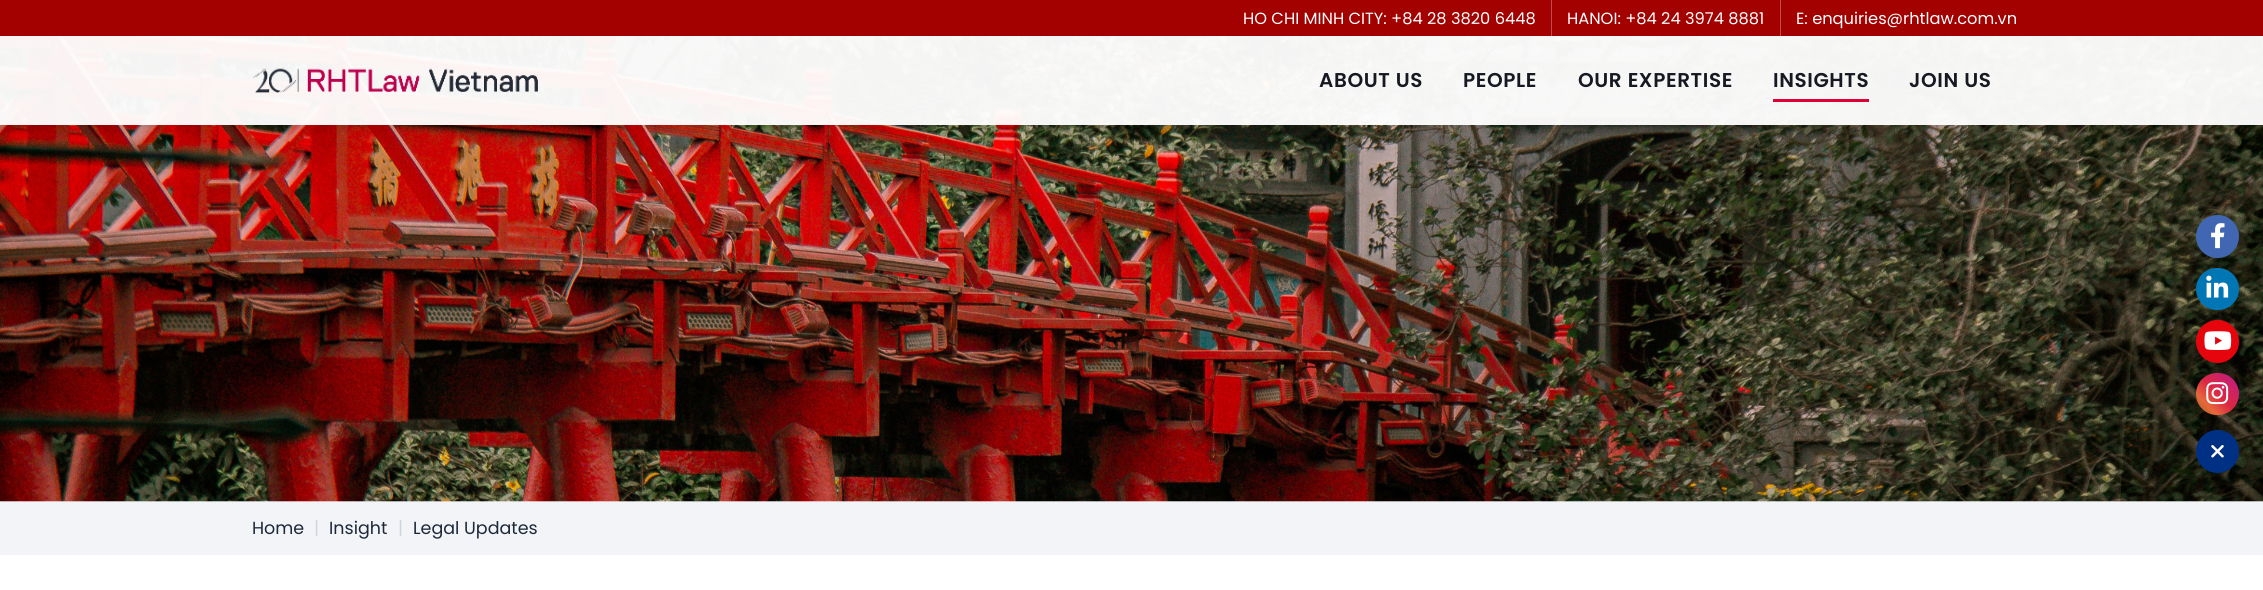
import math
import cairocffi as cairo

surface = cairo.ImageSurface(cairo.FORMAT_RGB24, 2263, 590)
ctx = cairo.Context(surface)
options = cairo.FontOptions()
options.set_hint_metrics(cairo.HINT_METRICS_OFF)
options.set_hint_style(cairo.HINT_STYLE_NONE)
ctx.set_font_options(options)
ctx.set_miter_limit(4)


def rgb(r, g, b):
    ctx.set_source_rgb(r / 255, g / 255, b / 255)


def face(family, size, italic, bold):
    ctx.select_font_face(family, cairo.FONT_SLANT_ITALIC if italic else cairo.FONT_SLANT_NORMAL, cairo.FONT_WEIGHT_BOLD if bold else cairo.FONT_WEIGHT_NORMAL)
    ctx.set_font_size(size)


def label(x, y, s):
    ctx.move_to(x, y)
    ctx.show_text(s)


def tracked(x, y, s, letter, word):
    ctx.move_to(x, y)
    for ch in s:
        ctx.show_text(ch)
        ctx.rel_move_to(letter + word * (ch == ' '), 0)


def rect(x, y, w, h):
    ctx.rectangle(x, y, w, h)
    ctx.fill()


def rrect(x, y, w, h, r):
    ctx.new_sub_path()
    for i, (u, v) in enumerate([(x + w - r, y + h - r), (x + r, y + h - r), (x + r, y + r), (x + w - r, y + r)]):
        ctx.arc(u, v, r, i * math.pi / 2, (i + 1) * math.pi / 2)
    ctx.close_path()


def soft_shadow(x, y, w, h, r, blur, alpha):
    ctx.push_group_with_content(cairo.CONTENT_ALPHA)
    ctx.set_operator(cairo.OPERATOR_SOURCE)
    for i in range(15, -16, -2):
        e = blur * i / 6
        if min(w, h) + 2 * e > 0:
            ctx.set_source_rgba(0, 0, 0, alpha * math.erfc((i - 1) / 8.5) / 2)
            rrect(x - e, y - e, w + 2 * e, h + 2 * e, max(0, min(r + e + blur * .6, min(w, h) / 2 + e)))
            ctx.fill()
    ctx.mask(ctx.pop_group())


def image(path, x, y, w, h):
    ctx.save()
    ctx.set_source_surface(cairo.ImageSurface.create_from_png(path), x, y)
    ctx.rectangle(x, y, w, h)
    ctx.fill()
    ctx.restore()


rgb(255, 255, 255)
ctx.paint()
rgb(242, 244, 247)
rect(0, 501, 2263, 54)
image('image1.png', 0, 36, 2263, 466)
ctx.save()
ctx.rectangle(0, 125, 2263, 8)
ctx.clip()
rgb(0, 0, 0)
soft_shadow(0, 3, 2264, 125, 0, 6, 0.1)
ctx.restore()
ctx.set_source_rgba(1, 1, 1, 0.95)
rect(0, 36, 2263, 89)
rgb(163, 0, 0)
rect(0, 0, 2263, 36)
rgb(191, 77, 77)
rect(1551, 0, 1, 36)
face('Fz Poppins', 16.25, 0, 0)
rgb(255, 255, 255)
label(1243, 24, 'HO CHI MINH CITY: +84 28 3820 6448')
rgb(191, 77, 77)
rect(1780, 0, 1, 36)
rgb(255, 255, 255)
label(1567, 24, 'HANOI: +84 24 3974 8881')
label(1796, 24, 'E: enquiries@rhtlaw.com.vn')
image('image0.png', 252, 68, 286, 25)
face('Fz Poppins SemiBold', 20, 0, 0)
rgb(22, 25, 33)
tracked(1319, 87, 'ABOUT US', 0.6, 0)
tracked(1463, 87, 'PEOPLE', 0.6, 0)
tracked(1578, 87, 'OUR EXPERTISE', 0.6, 0)
tracked(1773, 87, 'INSIGHTS', 0.6, 0)
rgb(222, 0, 53)
rect(1773, 99, 96, 3)
rgb(22, 25, 33)
tracked(1909, 87, 'JOIN US', 0.6, 0)
face('Fz Poppins', 17.5, 0, 0)
rgb(29, 41, 57)
label(252, 534, 'Home')
rgb(208, 213, 221)
label(314, 534, '|')
rgb(29, 41, 57)
label(329, 534, 'Insight')
rgb(208, 213, 221)
label(398, 534, '|')
rgb(29, 41, 57)
label(413, 534, 'Legal Updates')
rgb(66, 103, 178)
ctx.new_path()
ctx.arc(2217.5, 236.5, 21.5, 0, 2 * math.pi)
ctx.fill()
ctx.set_source_rgba(0.259, 0.404, 0.698, 0.1)
ctx.arc(2217.5, 236.5, 21.5, 0, 2 * math.pi)
ctx.fill()
image('image2.png', 2211, 223, 14, 26)
rgb(0, 119, 181)
rrect(2196, 268, 43, 42, 21)
ctx.fill()
ctx.set_source_rgba(0, 0.467, 0.71, 0.1)
rrect(2196, 268, 43, 42, 21)
ctx.fill()
image('image3.png', 2206, 275, 23, 23)
rgb(255, 0, 0)
ctx.arc(2217.5, 341.5, 21.5, 0, 2 * math.pi)
ctx.fill()
ctx.set_source_rgba(0, 0.188, 0.514, 0.1)
ctx.arc(2217.5, 341.5, 21.5, 0, 2 * math.pi)
ctx.fill()
image('image4.png', 2204, 331, 28, 19)
gradient = cairo.LinearGradient(2196, 415, 2239, 373)
gradient.add_color_stop_rgba(0, 0.667, 0.388, 0.09, 1)
gradient.add_color_stop_rgba(0.25, 0.902, 0.408, 0.235, 1)
gradient.add_color_stop_rgba(0.5, 0.863, 0.153, 0.263, 1)
gradient.add_color_stop_rgba(0.75, 0.8, 0.137, 0.4, 1)
gradient.add_color_stop_rgba(1, 0.737, 0.094, 0.533, 1)
ctx.set_source(gradient)
rrect(2196, 373, 43, 42, 21)
ctx.fill()
gradient = cairo.LinearGradient(2196, 415, 2239, 373)
gradient.add_color_stop_rgba(0, 0.667, 0.388, 0.09, 0.1)
gradient.add_color_stop_rgba(0.25, 0.902, 0.408, 0.235, 0.1)
gradient.add_color_stop_rgba(0.5, 0.863, 0.153, 0.263, 0.1)
gradient.add_color_stop_rgba(0.75, 0.8, 0.137, 0.4, 0.1)
gradient.add_color_stop_rgba(1, 0.737, 0.094, 0.533, 0.1)
ctx.set_source(gradient)
rrect(2196, 373, 43, 42, 21)
ctx.fill()
image('image5.png', 2206, 382, 23, 23)
rgb(0, 48, 131)
ctx.arc(2217.5, 451.5, 21.5, 0, 2 * math.pi)
ctx.fill()
image('image6.png', 2211, 445, 13, 13)
surface.write_to_png('render.png')
